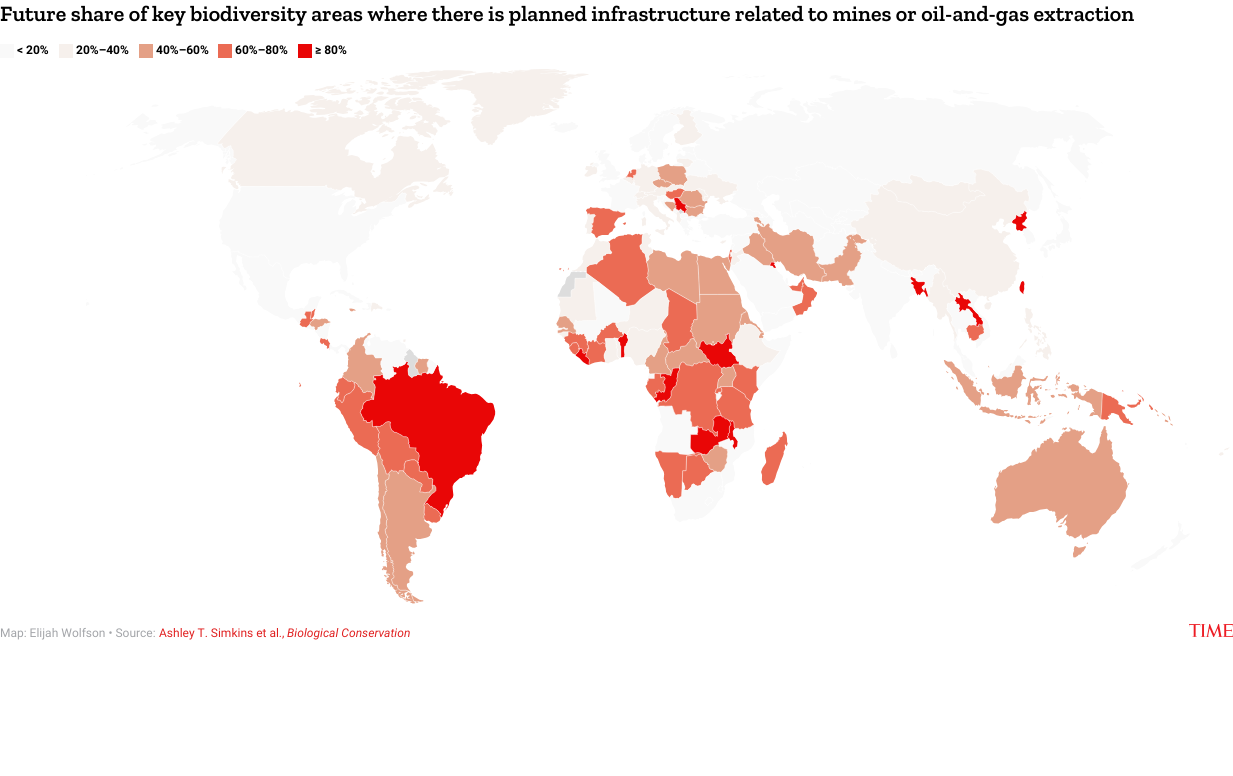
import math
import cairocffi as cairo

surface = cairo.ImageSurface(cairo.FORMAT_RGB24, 1233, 776)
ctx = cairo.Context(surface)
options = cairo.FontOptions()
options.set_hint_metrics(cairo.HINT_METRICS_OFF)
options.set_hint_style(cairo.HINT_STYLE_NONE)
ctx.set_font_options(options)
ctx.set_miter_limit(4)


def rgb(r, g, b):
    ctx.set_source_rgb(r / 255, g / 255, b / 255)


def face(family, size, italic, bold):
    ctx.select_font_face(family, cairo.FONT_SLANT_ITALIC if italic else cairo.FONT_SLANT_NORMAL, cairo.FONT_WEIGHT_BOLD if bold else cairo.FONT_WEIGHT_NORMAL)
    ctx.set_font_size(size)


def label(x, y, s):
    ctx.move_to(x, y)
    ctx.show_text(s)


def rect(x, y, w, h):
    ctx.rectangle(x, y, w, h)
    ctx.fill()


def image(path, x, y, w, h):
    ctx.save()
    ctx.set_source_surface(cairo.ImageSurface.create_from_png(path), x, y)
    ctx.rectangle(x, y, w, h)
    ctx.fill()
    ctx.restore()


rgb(255, 255, 255)
ctx.paint()
face('Zilla Slab SemiBold', 22, 0, 0)
rgb(0, 0, 0)
label(0, 21, 'Future share of key biodiversity areas where there is planned infrastructure related to mines or oil-and-gas extraction')
rgb(249, 249, 249)
rect(0, 44, 14, 14)
face('Roboto', 12, 0, 1)
rgb(0, 0, 0)
label(17, 54, '< 20%')
rgb(246, 240, 236)
rect(59, 44, 14, 14)
rgb(0, 0, 0)
label(76, 54, '20%–40%')
rgb(228, 160, 134)
rect(139, 44, 14, 14)
rgb(0, 0, 0)
label(156, 54, '40%–60%')
rgb(235, 107, 84)
rect(218, 44, 14, 14)
rgb(0, 0, 0)
label(235, 54, '60%–80%')
rgb(233, 6, 6)
rect(298, 44, 14, 14)
rgb(0, 0, 0)
label(315, 54, '≥ 80%')
image('image0.png', 86, 69, 1144, 535)
face('Roboto', 12, 0, 0)
rgb(163, 165, 169)
label(0, 637, 'Map: Elijah Wolfson • Source:')
rgb(224, 32, 32)
label(159, 637, 'Ashley T. Simkins et al.,')
face('Roboto', 12, 1, 0)
label(287, 637, 'Biological Conservation')
image('image1.png', 1189, 624, 44, 13)
surface.write_to_png('render.png')
